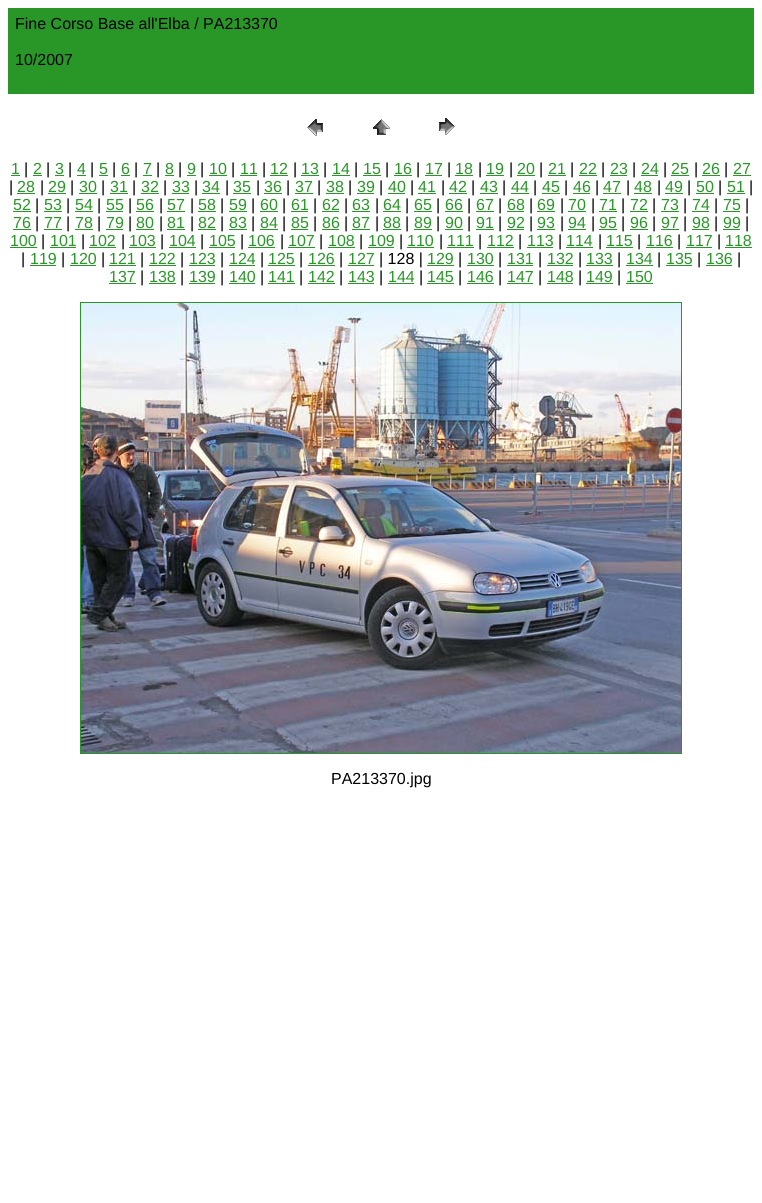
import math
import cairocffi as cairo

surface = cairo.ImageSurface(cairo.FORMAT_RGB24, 762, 1203)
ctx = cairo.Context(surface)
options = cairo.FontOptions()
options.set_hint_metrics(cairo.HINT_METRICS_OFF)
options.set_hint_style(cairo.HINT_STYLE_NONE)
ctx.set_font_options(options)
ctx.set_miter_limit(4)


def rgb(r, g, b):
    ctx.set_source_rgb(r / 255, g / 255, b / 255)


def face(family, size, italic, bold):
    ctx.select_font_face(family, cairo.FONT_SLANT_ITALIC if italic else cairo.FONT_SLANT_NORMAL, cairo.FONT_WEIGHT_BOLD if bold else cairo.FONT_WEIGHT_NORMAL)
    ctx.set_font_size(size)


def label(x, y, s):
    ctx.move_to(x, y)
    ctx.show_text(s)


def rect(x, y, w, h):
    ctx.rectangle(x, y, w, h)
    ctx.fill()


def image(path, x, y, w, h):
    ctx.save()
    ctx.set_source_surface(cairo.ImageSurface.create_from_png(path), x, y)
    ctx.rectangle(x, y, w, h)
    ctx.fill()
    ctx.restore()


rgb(255, 255, 255)
ctx.paint()
rgb(40, 151, 40)
rect(8, 8, 746, 86)
face('Liberation Sans', 16, 0, 0)
rgb(0, 0, 0)
label(15, 29, 'Fine Corso Base all\'Elba / PA213370')
label(15, 65, '10/2007')
image('image0.png', 307, 119, 16, 17)
image('image1.png', 373, 119, 17, 16)
image('image2.png', 439, 118, 16, 17)
rgb(40, 151, 40)
label(11, 174, '1')
rect(11, 175, 9, 1)
rgb(0, 0, 0)
label(24, 174, '|')
rgb(40, 151, 40)
label(33, 174, '2')
rect(33, 175, 9, 1)
rgb(0, 0, 0)
label(46, 174, '|')
rgb(40, 151, 40)
label(55, 174, '3')
rect(55, 175, 9, 1)
rgb(0, 0, 0)
label(68, 174, '|')
rgb(40, 151, 40)
label(77, 174, '4')
rect(77, 175, 9, 1)
rgb(0, 0, 0)
label(90, 174, '|')
rgb(40, 151, 40)
label(99, 174, '5')
rect(99, 175, 9, 1)
rgb(0, 0, 0)
label(112, 174, '|')
rgb(40, 151, 40)
label(121, 174, '6')
rect(121, 175, 9, 1)
rgb(0, 0, 0)
label(134, 174, '|')
rgb(40, 151, 40)
label(143, 174, '7')
rect(143, 175, 9, 1)
rgb(0, 0, 0)
label(156, 174, '|')
rgb(40, 151, 40)
label(165, 174, '8')
rect(165, 175, 9, 1)
rgb(0, 0, 0)
label(178, 174, '|')
rgb(40, 151, 40)
label(187, 174, '9')
rect(187, 175, 9, 1)
rgb(0, 0, 0)
label(200, 174, '|')
rgb(40, 151, 40)
label(209, 174, '10')
rect(209, 175, 18, 1)
rgb(0, 0, 0)
label(231, 174, '|')
rgb(40, 151, 40)
label(240, 174, '11')
rect(240, 175, 17, 1)
rgb(0, 0, 0)
label(262, 174, '|')
rgb(40, 151, 40)
label(270, 174, '12')
rect(270, 175, 18, 1)
rgb(0, 0, 0)
label(293, 174, '|')
rgb(40, 151, 40)
label(301, 174, '13')
rect(301, 175, 18, 1)
rgb(0, 0, 0)
label(323, 174, '|')
rgb(40, 151, 40)
label(332, 174, '14')
rect(332, 175, 18, 1)
rgb(0, 0, 0)
label(354, 174, '|')
rgb(40, 151, 40)
label(363, 174, '15')
rect(363, 175, 18, 1)
rgb(0, 0, 0)
label(385, 174, '|')
rgb(40, 151, 40)
label(394, 174, '16')
rect(394, 175, 18, 1)
rgb(0, 0, 0)
label(416, 174, '|')
rgb(40, 151, 40)
label(425, 174, '17')
rect(425, 175, 17, 1)
rgb(0, 0, 0)
label(447, 174, '|')
rgb(40, 151, 40)
label(455, 174, '18')
rect(455, 175, 18, 1)
rgb(0, 0, 0)
label(478, 174, '|')
rgb(40, 151, 40)
label(486, 174, '19')
rect(486, 175, 18, 1)
rgb(0, 0, 0)
label(509, 174, '|')
rgb(40, 151, 40)
label(517, 174, '20')
rect(517, 175, 18, 1)
rgb(0, 0, 0)
label(539, 174, '|')
rgb(40, 151, 40)
label(548, 174, '21')
rect(548, 175, 18, 1)
rgb(0, 0, 0)
label(570, 174, '|')
rgb(40, 151, 40)
label(579, 174, '22')
rect(579, 175, 18, 1)
rgb(0, 0, 0)
label(601, 174, '|')
rgb(40, 151, 40)
label(610, 174, '23')
rect(610, 175, 17, 1)
rgb(0, 0, 0)
label(632, 174, '|')
rgb(40, 151, 40)
label(641, 174, '24')
rect(641, 175, 17, 1)
rgb(0, 0, 0)
label(663, 174, '|')
rgb(40, 151, 40)
label(671, 174, '25')
rect(671, 175, 18, 1)
rgb(0, 0, 0)
label(694, 174, '|')
rgb(40, 151, 40)
label(702, 174, '26')
rect(702, 175, 18, 1)
rgb(0, 0, 0)
label(724, 174, '|')
rgb(40, 151, 40)
label(733, 174, '27')
rect(733, 175, 18, 1)
rgb(0, 0, 0)
label(9, 192, '|')
rgb(40, 151, 40)
label(17, 192, '28')
rect(17, 193, 18, 1)
rgb(0, 0, 0)
label(40, 192, '|')
rgb(40, 151, 40)
label(48, 192, '29')
rect(48, 193, 18, 1)
rgb(0, 0, 0)
label(70, 192, '|')
rgb(40, 151, 40)
label(79, 192, '30')
rect(79, 193, 18, 1)
rgb(0, 0, 0)
label(101, 192, '|')
rgb(40, 151, 40)
label(110, 192, '31')
rect(110, 193, 18, 1)
rgb(0, 0, 0)
label(132, 192, '|')
rgb(40, 151, 40)
label(141, 192, '32')
rect(141, 193, 18, 1)
rgb(0, 0, 0)
label(163, 192, '|')
rgb(40, 151, 40)
label(172, 192, '33')
rect(172, 193, 17, 1)
rgb(0, 0, 0)
label(194, 192, '|')
rgb(40, 151, 40)
label(202, 192, '34')
rect(202, 193, 18, 1)
rgb(0, 0, 0)
label(225, 192, '|')
rgb(40, 151, 40)
label(233, 192, '35')
rect(233, 193, 18, 1)
rgb(0, 0, 0)
label(256, 192, '|')
rgb(40, 151, 40)
label(264, 192, '36')
rect(264, 193, 18, 1)
rgb(0, 0, 0)
label(286, 192, '|')
rgb(40, 151, 40)
label(295, 192, '37')
rect(295, 193, 18, 1)
rgb(0, 0, 0)
label(317, 192, '|')
rgb(40, 151, 40)
label(326, 192, '38')
rect(326, 193, 18, 1)
rgb(0, 0, 0)
label(348, 192, '|')
rgb(40, 151, 40)
label(357, 192, '39')
rect(357, 193, 17, 1)
rgb(0, 0, 0)
label(379, 192, '|')
rgb(40, 151, 40)
label(388, 192, '40')
rect(388, 193, 17, 1)
rgb(0, 0, 0)
label(410, 192, '|')
rgb(40, 151, 40)
label(418, 192, '41')
rect(418, 193, 18, 1)
rgb(0, 0, 0)
label(441, 192, '|')
rgb(40, 151, 40)
label(449, 192, '42')
rect(449, 193, 18, 1)
rgb(0, 0, 0)
label(471, 192, '|')
rgb(40, 151, 40)
label(480, 192, '43')
rect(480, 193, 18, 1)
rgb(0, 0, 0)
label(502, 192, '|')
rgb(40, 151, 40)
label(511, 192, '44')
rect(511, 193, 18, 1)
rgb(0, 0, 0)
label(533, 192, '|')
rgb(40, 151, 40)
label(542, 192, '45')
rect(542, 193, 18, 1)
rgb(0, 0, 0)
label(564, 192, '|')
rgb(40, 151, 40)
label(573, 192, '46')
rect(573, 193, 17, 1)
rgb(0, 0, 0)
label(595, 192, '|')
rgb(40, 151, 40)
label(603, 192, '47')
rect(603, 193, 18, 1)
rgb(0, 0, 0)
label(626, 192, '|')
rgb(40, 151, 40)
label(634, 192, '48')
rect(634, 193, 18, 1)
rgb(0, 0, 0)
label(657, 192, '|')
rgb(40, 151, 40)
label(665, 192, '49')
rect(665, 193, 18, 1)
rgb(0, 0, 0)
label(687, 192, '|')
rgb(40, 151, 40)
label(696, 192, '50')
rect(696, 193, 18, 1)
rgb(0, 0, 0)
label(718, 192, '|')
rgb(40, 151, 40)
label(727, 192, '51')
rect(727, 193, 18, 1)
rgb(0, 0, 0)
label(749, 192, '|')
rgb(40, 151, 40)
label(13, 210, '52')
rect(13, 211, 18, 1)
rgb(0, 0, 0)
label(35, 210, '|')
rgb(40, 151, 40)
label(44, 210, '53')
rect(44, 211, 18, 1)
rgb(0, 0, 0)
label(66, 210, '|')
rgb(40, 151, 40)
label(75, 210, '54')
rect(75, 211, 18, 1)
rgb(0, 0, 0)
label(97, 210, '|')
rgb(40, 151, 40)
label(106, 210, '55')
rect(106, 211, 17, 1)
rgb(0, 0, 0)
label(128, 210, '|')
rgb(40, 151, 40)
label(136, 210, '56')
rect(136, 211, 18, 1)
rgb(0, 0, 0)
label(159, 210, '|')
rgb(40, 151, 40)
label(167, 210, '57')
rect(167, 211, 18, 1)
rgb(0, 0, 0)
label(190, 210, '|')
rgb(40, 151, 40)
label(198, 210, '58')
rect(198, 211, 18, 1)
rgb(0, 0, 0)
label(220, 210, '|')
rgb(40, 151, 40)
label(229, 210, '59')
rect(229, 211, 18, 1)
rgb(0, 0, 0)
label(251, 210, '|')
rgb(40, 151, 40)
label(260, 210, '60')
rect(260, 211, 18, 1)
rgb(0, 0, 0)
label(282, 210, '|')
rgb(40, 151, 40)
label(291, 210, '61')
rect(291, 211, 17, 1)
rgb(0, 0, 0)
label(313, 210, '|')
rgb(40, 151, 40)
label(322, 210, '62')
rect(322, 211, 17, 1)
rgb(0, 0, 0)
label(344, 210, '|')
rgb(40, 151, 40)
label(352, 210, '63')
rect(352, 211, 18, 1)
rgb(0, 0, 0)
label(375, 210, '|')
rgb(40, 151, 40)
label(383, 210, '64')
rect(383, 211, 18, 1)
rgb(0, 0, 0)
label(405, 210, '|')
rgb(40, 151, 40)
label(414, 210, '65')
rect(414, 211, 18, 1)
rgb(0, 0, 0)
label(436, 210, '|')
rgb(40, 151, 40)
label(445, 210, '66')
rect(445, 211, 18, 1)
rgb(0, 0, 0)
label(467, 210, '|')
rgb(40, 151, 40)
label(476, 210, '67')
rect(476, 211, 18, 1)
rgb(0, 0, 0)
label(498, 210, '|')
rgb(40, 151, 40)
label(507, 210, '68')
rect(507, 211, 17, 1)
rgb(0, 0, 0)
label(529, 210, '|')
rgb(40, 151, 40)
label(537, 210, '69')
rect(537, 211, 18, 1)
rgb(0, 0, 0)
label(560, 210, '|')
rgb(40, 151, 40)
label(568, 210, '70')
rect(568, 211, 18, 1)
rgb(0, 0, 0)
label(591, 210, '|')
rgb(40, 151, 40)
label(599, 210, '71')
rect(599, 211, 18, 1)
rgb(0, 0, 0)
label(621, 210, '|')
rgb(40, 151, 40)
label(630, 210, '72')
rect(630, 211, 18, 1)
rgb(0, 0, 0)
label(652, 210, '|')
rgb(40, 151, 40)
label(661, 210, '73')
rect(661, 211, 18, 1)
rgb(0, 0, 0)
label(683, 210, '|')
rgb(40, 151, 40)
label(692, 210, '74')
rect(692, 211, 17, 1)
rgb(0, 0, 0)
label(714, 210, '|')
rgb(40, 151, 40)
label(723, 210, '75')
rect(723, 211, 17, 1)
rgb(0, 0, 0)
label(745, 210, '|')
rgb(40, 151, 40)
label(13, 228, '76')
rect(13, 229, 18, 1)
rgb(0, 0, 0)
label(35, 228, '|')
rgb(40, 151, 40)
label(44, 228, '77')
rect(44, 229, 18, 1)
rgb(0, 0, 0)
label(66, 228, '|')
rgb(40, 151, 40)
label(75, 228, '78')
rect(75, 229, 18, 1)
rgb(0, 0, 0)
label(97, 228, '|')
rgb(40, 151, 40)
label(106, 228, '79')
rect(106, 229, 17, 1)
rgb(0, 0, 0)
label(128, 228, '|')
rgb(40, 151, 40)
label(136, 228, '80')
rect(136, 229, 18, 1)
rgb(0, 0, 0)
label(159, 228, '|')
rgb(40, 151, 40)
label(167, 228, '81')
rect(167, 229, 18, 1)
rgb(0, 0, 0)
label(190, 228, '|')
rgb(40, 151, 40)
label(198, 228, '82')
rect(198, 229, 18, 1)
rgb(0, 0, 0)
label(220, 228, '|')
rgb(40, 151, 40)
label(229, 228, '83')
rect(229, 229, 18, 1)
rgb(0, 0, 0)
label(251, 228, '|')
rgb(40, 151, 40)
label(260, 228, '84')
rect(260, 229, 18, 1)
rgb(0, 0, 0)
label(282, 228, '|')
rgb(40, 151, 40)
label(291, 228, '85')
rect(291, 229, 17, 1)
rgb(0, 0, 0)
label(313, 228, '|')
rgb(40, 151, 40)
label(322, 228, '86')
rect(322, 229, 17, 1)
rgb(0, 0, 0)
label(344, 228, '|')
rgb(40, 151, 40)
label(352, 228, '87')
rect(352, 229, 18, 1)
rgb(0, 0, 0)
label(375, 228, '|')
rgb(40, 151, 40)
label(383, 228, '88')
rect(383, 229, 18, 1)
rgb(0, 0, 0)
label(405, 228, '|')
rgb(40, 151, 40)
label(414, 228, '89')
rect(414, 229, 18, 1)
rgb(0, 0, 0)
label(436, 228, '|')
rgb(40, 151, 40)
label(445, 228, '90')
rect(445, 229, 18, 1)
rgb(0, 0, 0)
label(467, 228, '|')
rgb(40, 151, 40)
label(476, 228, '91')
rect(476, 229, 18, 1)
rgb(0, 0, 0)
label(498, 228, '|')
rgb(40, 151, 40)
label(507, 228, '92')
rect(507, 229, 17, 1)
rgb(0, 0, 0)
label(529, 228, '|')
rgb(40, 151, 40)
label(537, 228, '93')
rect(537, 229, 18, 1)
rgb(0, 0, 0)
label(560, 228, '|')
rgb(40, 151, 40)
label(568, 228, '94')
rect(568, 229, 18, 1)
rgb(0, 0, 0)
label(591, 228, '|')
rgb(40, 151, 40)
label(599, 228, '95')
rect(599, 229, 18, 1)
rgb(0, 0, 0)
label(621, 228, '|')
rgb(40, 151, 40)
label(630, 228, '96')
rect(630, 229, 18, 1)
rgb(0, 0, 0)
label(652, 228, '|')
rgb(40, 151, 40)
label(661, 228, '97')
rect(661, 229, 18, 1)
rgb(0, 0, 0)
label(683, 228, '|')
rgb(40, 151, 40)
label(692, 228, '98')
rect(692, 229, 17, 1)
rgb(0, 0, 0)
label(714, 228, '|')
rgb(40, 151, 40)
label(723, 228, '99')
rect(723, 229, 17, 1)
rgb(0, 0, 0)
label(745, 228, '|')
rgb(40, 151, 40)
label(10, 246, '100')
rect(10, 247, 27, 1)
rgb(0, 0, 0)
label(41, 246, '|')
rgb(40, 151, 40)
label(50, 246, '101')
rect(50, 247, 26, 1)
rgb(0, 0, 0)
label(81, 246, '|')
rgb(40, 151, 40)
label(89, 246, '102')
rect(89, 247, 27, 1)
rgb(0, 0, 0)
label(121, 246, '|')
rgb(40, 151, 40)
label(129, 246, '103')
rect(129, 247, 27, 1)
rgb(0, 0, 0)
label(160, 246, '|')
rgb(40, 151, 40)
label(169, 246, '104')
rect(169, 247, 27, 1)
rgb(0, 0, 0)
label(200, 246, '|')
rgb(40, 151, 40)
label(209, 246, '105')
rect(209, 247, 26, 1)
rgb(0, 0, 0)
label(240, 246, '|')
rgb(40, 151, 40)
label(248, 246, '106')
rect(248, 247, 27, 1)
rgb(0, 0, 0)
label(280, 246, '|')
rgb(40, 151, 40)
label(288, 246, '107')
rect(288, 247, 27, 1)
rgb(0, 0, 0)
label(319, 246, '|')
rgb(40, 151, 40)
label(328, 246, '108')
rect(328, 247, 27, 1)
rgb(0, 0, 0)
label(359, 246, '|')
rgb(40, 151, 40)
label(368, 246, '109')
rect(368, 247, 26, 1)
rgb(0, 0, 0)
label(399, 246, '|')
rgb(40, 151, 40)
label(407, 246, '110')
rect(407, 247, 27, 1)
rgb(0, 0, 0)
label(439, 246, '|')
rgb(40, 151, 40)
label(447, 246, '111')
rect(447, 247, 27, 1)
rgb(0, 0, 0)
label(478, 246, '|')
rgb(40, 151, 40)
label(487, 246, '112')
rect(487, 247, 27, 1)
rgb(0, 0, 0)
label(518, 246, '|')
rgb(40, 151, 40)
label(527, 246, '113')
rect(527, 247, 26, 1)
rgb(0, 0, 0)
label(558, 246, '|')
rgb(40, 151, 40)
label(566, 246, '114')
rect(566, 247, 27, 1)
rgb(0, 0, 0)
label(598, 246, '|')
rgb(40, 151, 40)
label(606, 246, '115')
rect(606, 247, 27, 1)
rgb(0, 0, 0)
label(637, 246, '|')
rgb(40, 151, 40)
label(646, 246, '116')
rect(646, 247, 27, 1)
rgb(0, 0, 0)
label(677, 246, '|')
rgb(40, 151, 40)
label(686, 246, '117')
rect(686, 247, 26, 1)
rgb(0, 0, 0)
label(717, 246, '|')
rgb(40, 151, 40)
label(725, 246, '118')
rect(725, 247, 27, 1)
rgb(0, 0, 0)
label(21, 264, '|')
rgb(40, 151, 40)
label(30, 264, '119')
rect(30, 265, 26, 1)
rgb(0, 0, 0)
label(61, 264, '|')
rgb(40, 151, 40)
label(70, 264, '120')
rect(70, 265, 26, 1)
rgb(0, 0, 0)
label(101, 264, '|')
rgb(40, 151, 40)
label(109, 264, '121')
rect(109, 265, 27, 1)
rgb(0, 0, 0)
label(140, 264, '|')
rgb(40, 151, 40)
label(149, 264, '122')
rect(149, 265, 27, 1)
rgb(0, 0, 0)
label(180, 264, '|')
rgb(40, 151, 40)
label(189, 264, '123')
rect(189, 265, 26, 1)
rgb(0, 0, 0)
label(220, 264, '|')
rgb(40, 151, 40)
label(229, 264, '124')
rect(229, 265, 26, 1)
rgb(0, 0, 0)
label(260, 264, '|')
rgb(40, 151, 40)
label(268, 264, '125')
rect(268, 265, 27, 1)
rgb(0, 0, 0)
label(299, 264, '|')
rgb(40, 151, 40)
label(308, 264, '126')
rect(308, 265, 27, 1)
rgb(0, 0, 0)
label(339, 264, '|')
rgb(40, 151, 40)
label(348, 264, '127')
rect(348, 265, 26, 1)
rgb(0, 0, 0)
label(379, 264, '| 128 |')
rgb(40, 151, 40)
label(427, 264, '129')
rect(427, 265, 27, 1)
rgb(0, 0, 0)
label(458, 264, '|')
rgb(40, 151, 40)
label(467, 264, '130')
rect(467, 265, 27, 1)
rgb(0, 0, 0)
label(498, 264, '|')
rgb(40, 151, 40)
label(507, 264, '131')
rect(507, 265, 26, 1)
rgb(0, 0, 0)
label(538, 264, '|')
rgb(40, 151, 40)
label(547, 264, '132')
rect(547, 265, 26, 1)
rgb(0, 0, 0)
label(578, 264, '|')
rgb(40, 151, 40)
label(586, 264, '133')
rect(586, 265, 27, 1)
rgb(0, 0, 0)
label(617, 264, '|')
rgb(40, 151, 40)
label(626, 264, '134')
rect(626, 265, 27, 1)
rgb(0, 0, 0)
label(657, 264, '|')
rgb(40, 151, 40)
label(666, 264, '135')
rect(666, 265, 26, 1)
rgb(0, 0, 0)
label(697, 264, '|')
rgb(40, 151, 40)
label(706, 264, '136')
rect(706, 265, 26, 1)
rgb(0, 0, 0)
label(737, 264, '|')
rgb(40, 151, 40)
label(109, 282, '137')
rect(109, 283, 27, 1)
rgb(0, 0, 0)
label(140, 282, '|')
rgb(40, 151, 40)
label(149, 282, '138')
rect(149, 283, 27, 1)
rgb(0, 0, 0)
label(180, 282, '|')
rgb(40, 151, 40)
label(189, 282, '139')
rect(189, 283, 26, 1)
rgb(0, 0, 0)
label(220, 282, '|')
rgb(40, 151, 40)
label(229, 282, '140')
rect(229, 283, 26, 1)
rgb(0, 0, 0)
label(260, 282, '|')
rgb(40, 151, 40)
label(268, 282, '141')
rect(268, 283, 27, 1)
rgb(0, 0, 0)
label(299, 282, '|')
rgb(40, 151, 40)
label(308, 282, '142')
rect(308, 283, 27, 1)
rgb(0, 0, 0)
label(339, 282, '|')
rgb(40, 151, 40)
label(348, 282, '143')
rect(348, 283, 26, 1)
rgb(0, 0, 0)
label(379, 282, '|')
rgb(40, 151, 40)
label(388, 282, '144')
rect(388, 283, 26, 1)
rgb(0, 0, 0)
label(419, 282, '|')
rgb(40, 151, 40)
label(427, 282, '145')
rect(427, 283, 27, 1)
rgb(0, 0, 0)
label(458, 282, '|')
rgb(40, 151, 40)
label(467, 282, '146')
rect(467, 283, 27, 1)
rgb(0, 0, 0)
label(498, 282, '|')
rgb(40, 151, 40)
label(507, 282, '147')
rect(507, 283, 26, 1)
rgb(0, 0, 0)
label(538, 282, '|')
rgb(40, 151, 40)
label(547, 282, '148')
rect(547, 283, 26, 1)
rgb(0, 0, 0)
label(578, 282, '|')
rgb(40, 151, 40)
label(586, 282, '149')
rect(586, 283, 27, 1)
rgb(0, 0, 0)
label(617, 282, '|')
rgb(40, 151, 40)
label(626, 282, '150')
rect(626, 283, 27, 1)
ctx.rectangle(80.5, 302.5, 601, 451)
ctx.set_line_width(1)
ctx.stroke()
image('image3.png', 81, 303, 600, 450)
rgb(0, 0, 0)
label(331, 784, 'PA213370.jpg')
surface.write_to_png('render.png')
